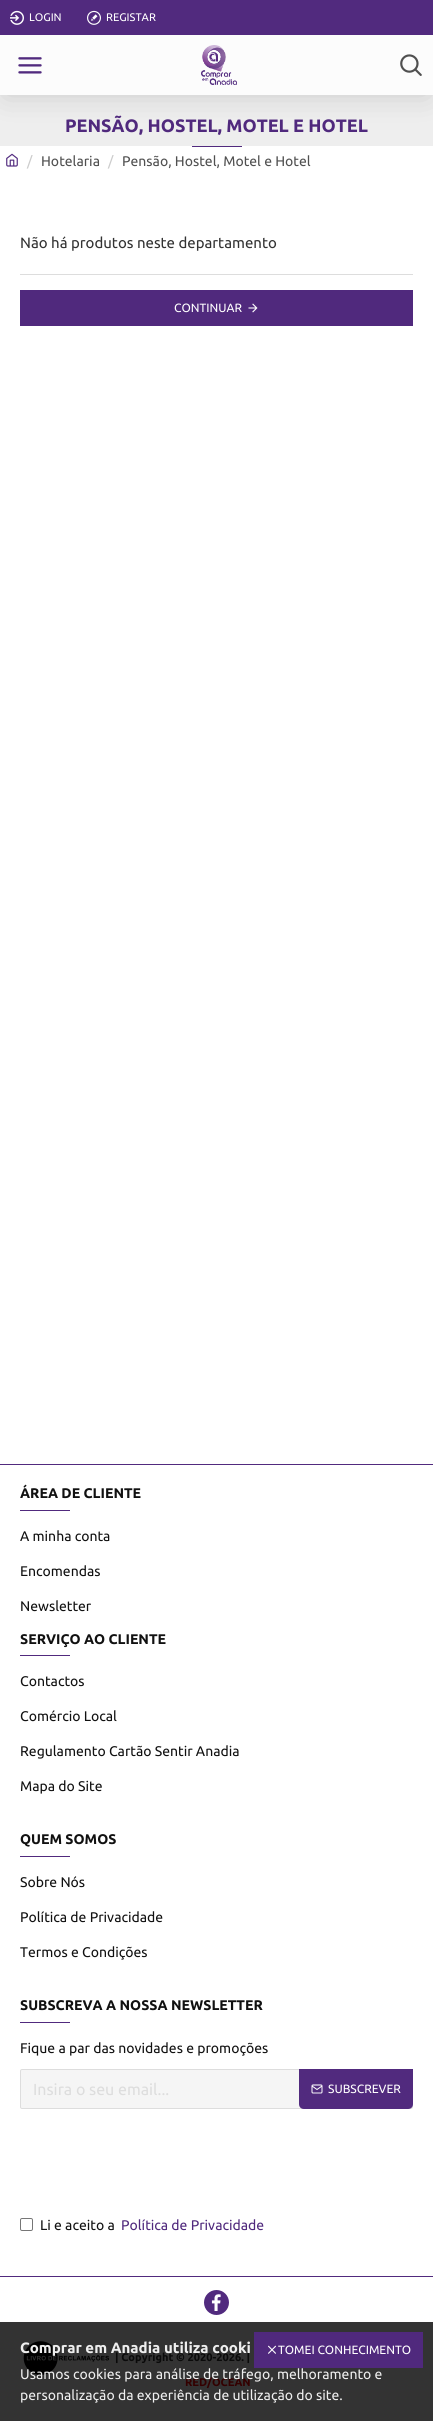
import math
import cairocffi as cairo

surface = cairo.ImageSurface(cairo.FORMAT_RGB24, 433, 2421)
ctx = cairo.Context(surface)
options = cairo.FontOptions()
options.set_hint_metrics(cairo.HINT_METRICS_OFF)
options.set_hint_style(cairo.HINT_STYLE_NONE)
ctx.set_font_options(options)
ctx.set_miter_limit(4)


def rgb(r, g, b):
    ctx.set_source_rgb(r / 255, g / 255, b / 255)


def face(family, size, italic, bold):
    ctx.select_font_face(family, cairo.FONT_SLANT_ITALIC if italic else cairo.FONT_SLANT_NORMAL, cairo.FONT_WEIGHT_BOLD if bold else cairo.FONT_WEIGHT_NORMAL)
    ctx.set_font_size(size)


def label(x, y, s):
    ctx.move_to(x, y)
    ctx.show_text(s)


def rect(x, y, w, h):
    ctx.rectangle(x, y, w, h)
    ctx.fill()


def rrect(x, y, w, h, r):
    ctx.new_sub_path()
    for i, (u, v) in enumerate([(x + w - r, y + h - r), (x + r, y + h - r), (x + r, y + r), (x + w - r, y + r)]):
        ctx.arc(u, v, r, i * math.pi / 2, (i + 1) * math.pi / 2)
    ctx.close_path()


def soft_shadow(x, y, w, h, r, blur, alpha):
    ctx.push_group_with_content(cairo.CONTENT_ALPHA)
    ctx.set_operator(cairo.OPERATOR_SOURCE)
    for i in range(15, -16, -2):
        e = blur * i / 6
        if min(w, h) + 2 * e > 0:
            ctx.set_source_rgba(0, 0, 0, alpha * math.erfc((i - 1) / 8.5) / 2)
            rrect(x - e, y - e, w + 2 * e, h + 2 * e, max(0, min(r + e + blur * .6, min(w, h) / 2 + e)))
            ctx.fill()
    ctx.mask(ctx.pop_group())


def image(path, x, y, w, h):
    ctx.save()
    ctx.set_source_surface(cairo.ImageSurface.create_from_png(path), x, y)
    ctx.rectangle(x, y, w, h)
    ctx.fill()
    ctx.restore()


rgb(255, 255, 255)
ctx.paint()
rgb(51, 51, 51)
rect(0, 2322, 433, 99)
rgb(238, 238, 238)
rect(0, 95, 433, 51)
rgb(0, 0, 0)
soft_shadow(5, 45, 423, 50, 0, 15, 0.15)
rgb(252, 252, 252)
rect(0, 35, 433, 60)
image('image0.png', 201, 45, 36, 40)
image('image1.png', 18, 57, 24, 17)
image('image2.png', 400, 54, 22, 22)
rgb(81, 42, 126)
rect(0, 0, 433, 35)
image('image3.png', 10, 10, 14, 15)
face('Ubuntu', 11, 0, 0)
rgb(255, 255, 255)
label(29, 21, 'LOGIN')
image('image4.png', 87, 10, 14, 15)
label(106, 21, 'REGISTAR')
face('Ubuntu', 18, 0, 1)
rgb(80, 41, 125)
label(65, 132, 'PENSÃO, HOSTEL, MOTEL E HOTEL')
rgb(81, 42, 126)
rect(192, 146, 50, 1)
image('image5.png', 6, 153, 12, 14)
face('Ubuntu', 14, 0, 0)
rgb(204, 204, 204)
label(27, 166, '/')
rgb(80, 80, 80)
label(41, 166, 'Hotelaria')
rgb(204, 204, 204)
label(108, 166, '/')
rgb(80, 80, 80)
label(122, 166, 'Pensão, Hostel, Motel e Hotel')
face('Ubuntu', 15, 0, 0)
rgb(51, 51, 51)
label(20, 248, 'Não há produtos neste departamento')
rgb(221, 221, 221)
rect(20, 274, 393, 1)
rgb(80, 41, 125)
rect(20, 290, 393, 36)
face('Ubuntu', 12, 0, 0)
rgb(255, 255, 255)
label(174, 312, 'CONTINUAR')
image('image6.png', 248, 303, 10, 10)
rgb(81, 42, 126)
rect(0, 1464, 433, 1)
face('Ubuntu', 14, 0, 1)
rgb(17, 17, 17)
label(20, 1498, 'ÁREA DE CLIENTE')
rgb(81, 42, 126)
rect(20, 1510, 50, 1)
face('Ubuntu', 14, 0, 0)
rgb(17, 17, 17)
label(20, 1541, 'A minha conta')
label(20, 1576, 'Encomendas')
label(20, 1611, 'Newsletter')
face('Ubuntu', 14, 0, 1)
label(20, 1644, 'SERVIÇO AO CLIENTE')
rgb(81, 42, 126)
rect(20, 1655, 50, 1)
face('Ubuntu', 14, 0, 0)
rgb(17, 17, 17)
label(20, 1686, 'Contactos')
label(20, 1721, 'Comércio Local')
label(20, 1756, 'Regulamento Cartão Sentir Anadia')
label(20, 1791, 'Mapa do Site')
face('Ubuntu', 14, 0, 1)
label(20, 1844, 'QUEM SOMOS')
rgb(81, 42, 126)
rect(20, 1856, 50, 1)
face('Ubuntu', 14, 0, 0)
rgb(17, 17, 17)
label(20, 1887, 'Sobre Nós')
label(20, 1922, 'Política de Privacidade')
label(20, 1957, 'Termos e Condições')
face('Ubuntu', 14, 0, 1)
label(20, 2010, 'SUBSCREVA A NOSSA NEWSLETTER')
rgb(81, 42, 126)
rect(20, 2022, 50, 1)
face('Ubuntu', 14, 0, 0)
rgb(17, 17, 17)
label(20, 2053, 'Fique a par das novidades e promoções')
rgb(245, 245, 245)
rrect(20.5, 2069.5, 392, 39, 1.5)
ctx.fill_preserve()
rgb(221, 221, 221)
ctx.set_line_width(1)
ctx.stroke()
face('Ubuntu', 16, 0, 0)
label(33, 2095, 'Insira o seu email...')
rgb(81, 42, 126)
ctx.new_path()
ctx.move_to(299, 2069)
ctx.line_to(413, 2069)
ctx.line_to(413, 2104)
ctx.curve_to(413, 2107, 411, 2109, 408, 2109)
ctx.line_to(304, 2109)
ctx.curve_to(301, 2109, 299, 2107, 299, 2104)
ctx.close_path()
ctx.fill()
image('image7.png', 311, 2084, 12, 10)
face('Ubuntu', 12, 0, 0)
rgb(255, 255, 255)
label(328, 2093, 'SUBSCREVER')
rrect(20.5, 2218.5, 12, 12, 1.5)
rgb(118, 118, 118)
ctx.stroke()
face('Ubuntu', 14, 0, 0)
rgb(17, 17, 17)
label(40, 2230, 'Li e aceito a')
rgb(80, 41, 125)
label(121, 2230, 'Política de Privacidade')
rgb(81, 42, 126)
rect(0, 2276, 433, 1)
ctx.new_path()
ctx.arc(216.5, 2302.5, 12.5, 0, 2 * math.pi)
ctx.fill()
image('image8.png', 211, 2294, 10, 17)
image('image9.png', 23, 2341, 86, 34)
face('Ubuntu', 11, 0, 1)
rgb(10, 10, 10)
label(115, 2361, '| Copyright © 2020-2026. |')
rgb(51, 0, 0)
label(185, 2386, 'RED/OCEAN')
face('Ubuntu', 15, 0, 1)
rgb(238, 238, 238)
label(20, 2353, 'Comprar em Anadia utiliza cooki')
face('Ubuntu', 14, 0, 0)
label(20, 2379, 'Usamos cookies para análise de tráfego, melhoramento e')
label(20, 2400, 'personalização da experiência de utilização do site.')
rgb(80, 41, 125)
rect(254, 2332, 169, 36)
image('image10.png', 268, 2345, 8, 9)
face('Ubuntu', 12, 0, 0)
rgb(255, 255, 255)
label(278, 2354, 'TOMEI CONHECIMENTO')
surface.write_to_png('render.png')
